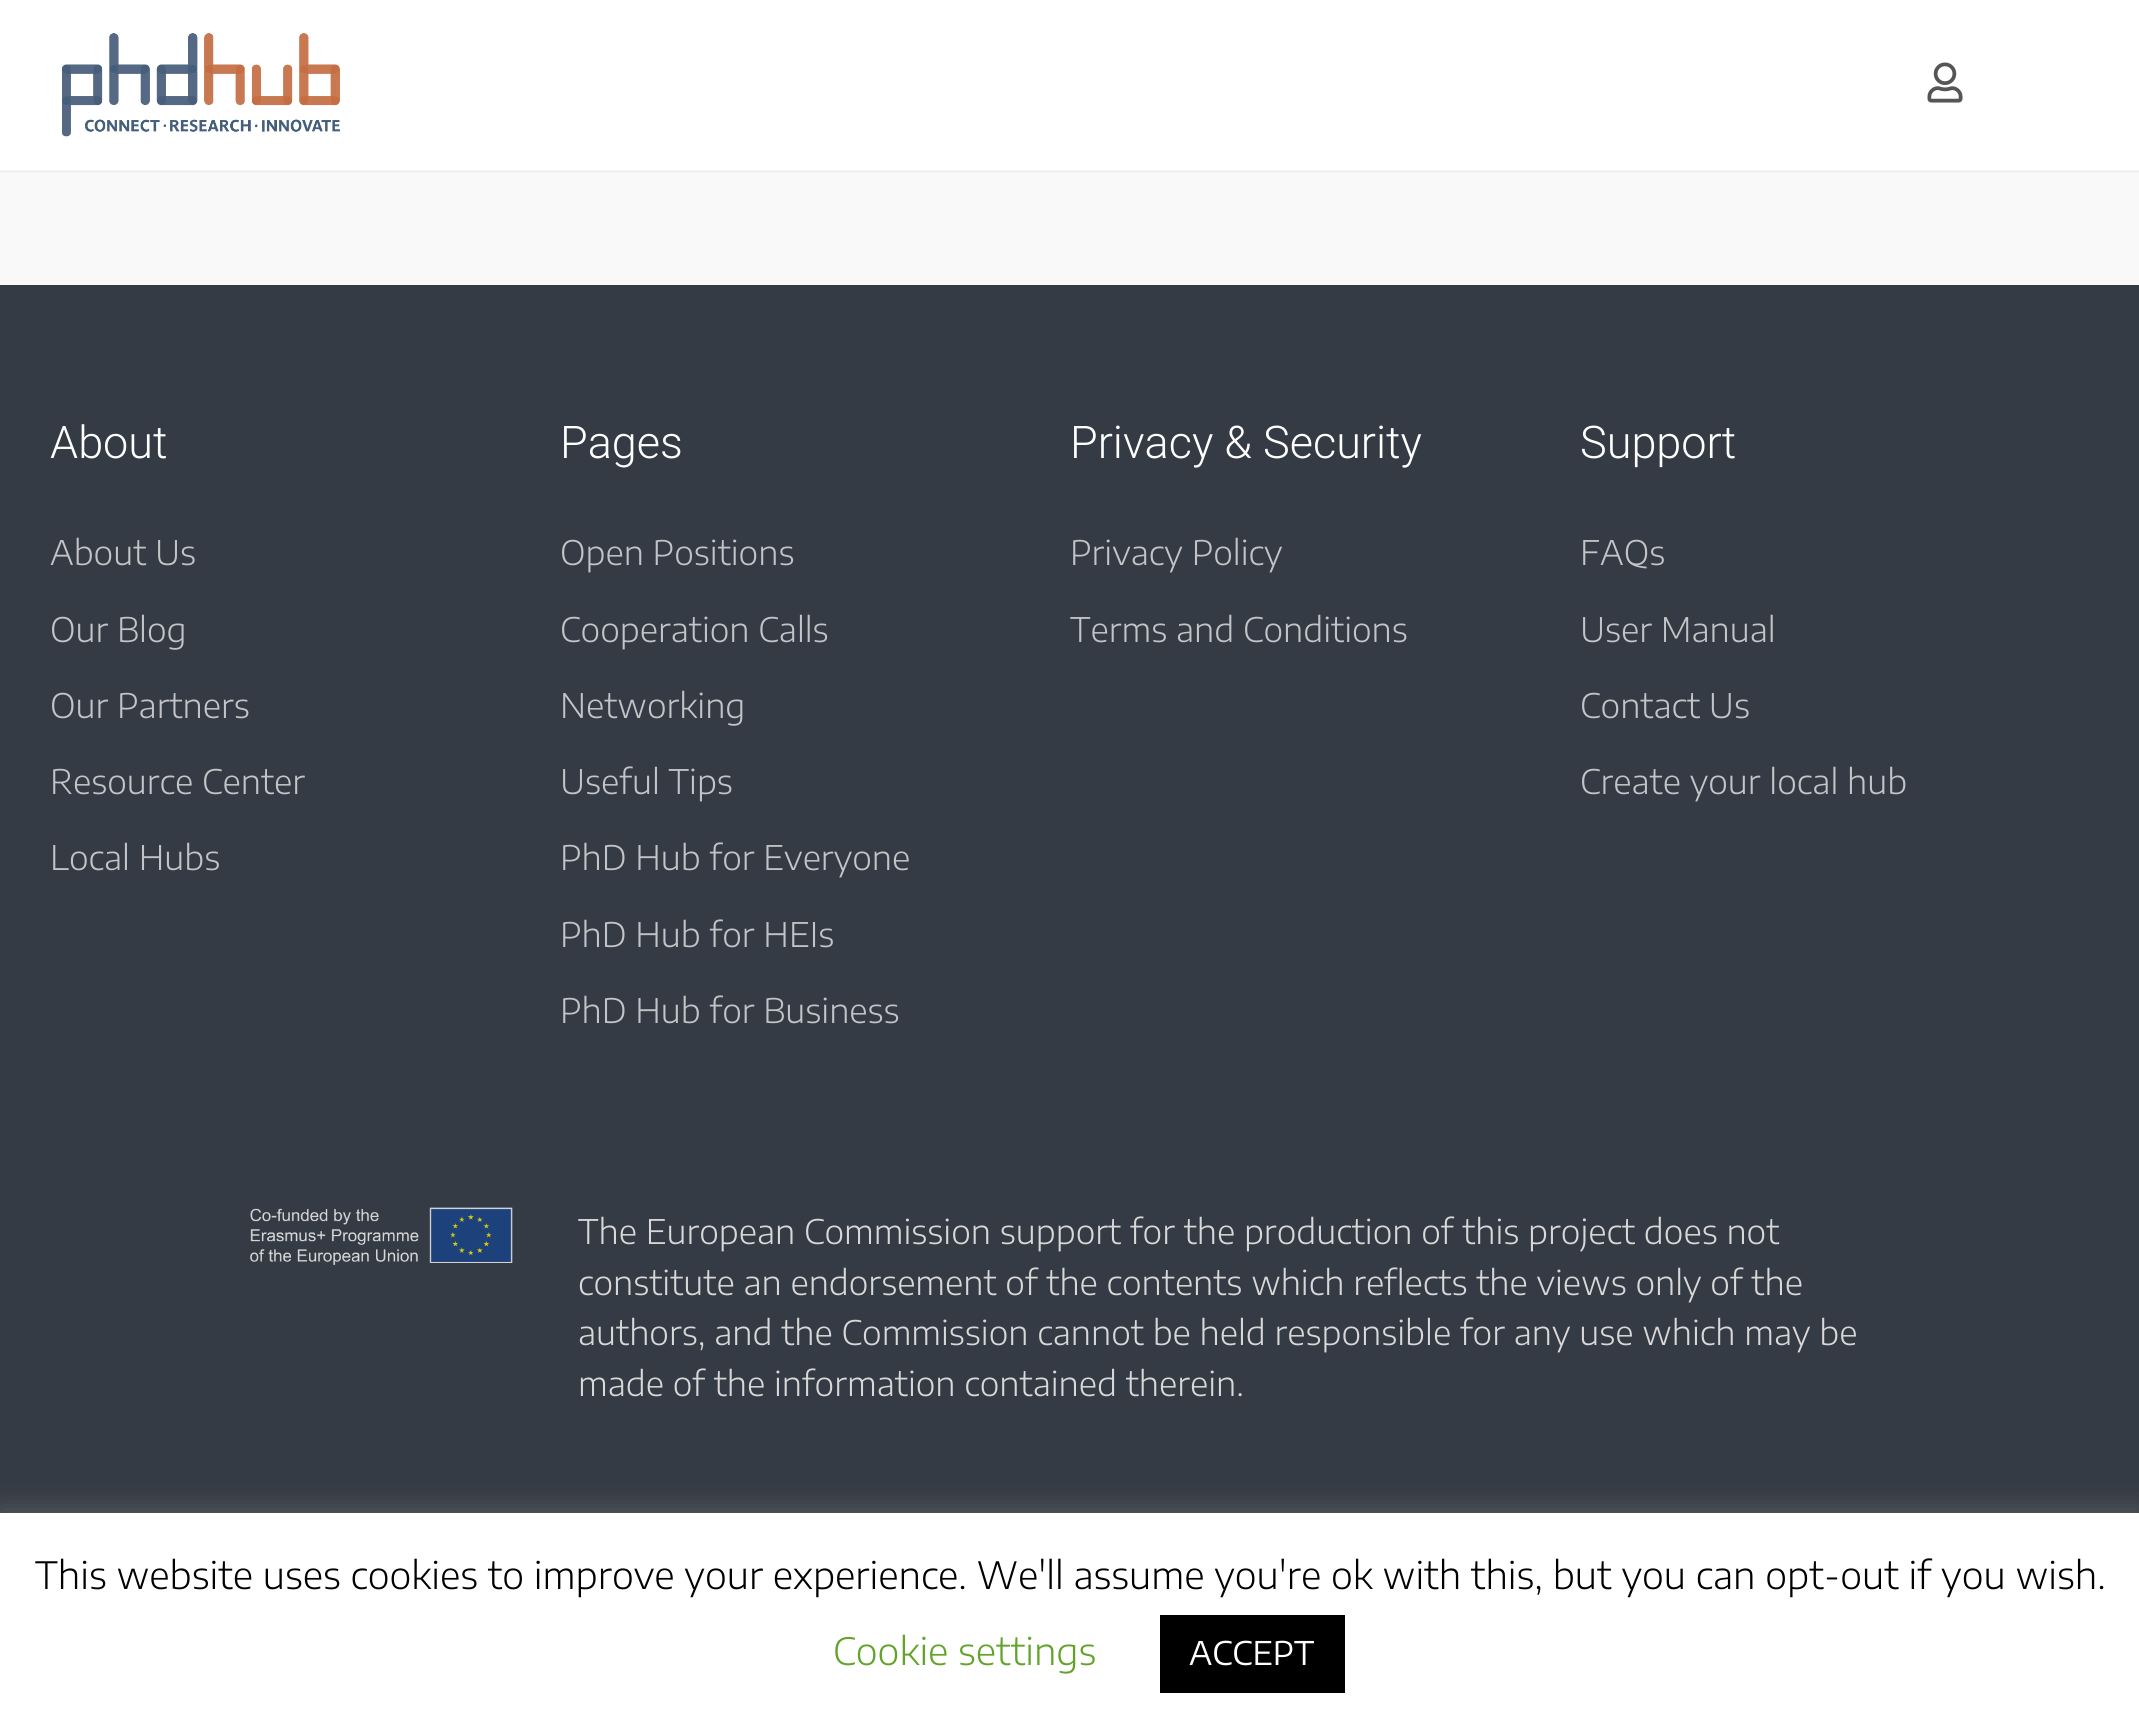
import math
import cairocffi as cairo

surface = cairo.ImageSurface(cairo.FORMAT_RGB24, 2139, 1734)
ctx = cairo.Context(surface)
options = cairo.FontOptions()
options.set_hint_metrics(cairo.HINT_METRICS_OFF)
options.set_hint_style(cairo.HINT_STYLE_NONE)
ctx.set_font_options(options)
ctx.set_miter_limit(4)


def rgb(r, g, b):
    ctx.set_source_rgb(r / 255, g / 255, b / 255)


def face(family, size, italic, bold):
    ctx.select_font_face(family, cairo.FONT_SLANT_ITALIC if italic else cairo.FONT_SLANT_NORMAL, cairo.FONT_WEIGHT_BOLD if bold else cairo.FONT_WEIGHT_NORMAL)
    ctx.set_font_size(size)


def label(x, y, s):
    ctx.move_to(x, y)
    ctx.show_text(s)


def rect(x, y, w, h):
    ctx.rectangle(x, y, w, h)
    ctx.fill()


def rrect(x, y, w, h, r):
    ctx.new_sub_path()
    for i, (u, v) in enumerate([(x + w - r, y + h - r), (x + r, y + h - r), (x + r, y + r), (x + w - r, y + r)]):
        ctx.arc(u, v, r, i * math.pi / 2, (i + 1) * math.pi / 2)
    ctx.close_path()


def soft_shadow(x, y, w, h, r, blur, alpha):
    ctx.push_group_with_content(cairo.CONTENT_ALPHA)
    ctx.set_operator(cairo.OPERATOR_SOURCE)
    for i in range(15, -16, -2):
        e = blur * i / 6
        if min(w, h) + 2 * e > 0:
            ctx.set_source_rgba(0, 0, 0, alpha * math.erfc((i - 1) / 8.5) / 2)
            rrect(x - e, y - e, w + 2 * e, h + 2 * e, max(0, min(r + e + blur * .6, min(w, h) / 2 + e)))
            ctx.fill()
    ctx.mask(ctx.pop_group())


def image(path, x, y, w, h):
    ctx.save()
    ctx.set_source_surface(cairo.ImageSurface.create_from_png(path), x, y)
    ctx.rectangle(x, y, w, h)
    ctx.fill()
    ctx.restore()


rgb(249, 249, 249)
ctx.paint()
rgb(255, 255, 255)
rect(0, 0, 2139, 170)
rgb(242, 242, 242)
rect(0, 170, 2139, 3)
image('image0.png', 62, 33, 278, 104)
image('image1.png', 1927, 62, 36, 41)
rgb(53, 59, 68)
rect(0, 285, 2139, 1228)
face('Roboto Light', 45, 0, 0)
rgb(255, 255, 255)
label(50, 458, 'About')
face('Encode Sans Semi Expanded Light', 33.75, 0, 0)
rgb(194, 196, 199)
label(50, 565, 'About Us')
label(50, 642, 'Our Blog')
label(50, 718, 'Our Partners')
label(50, 794, 'Resource Center')
label(50, 870, 'Local Hubs')
face('Roboto Light', 45, 0, 0)
rgb(255, 255, 255)
label(560, 458, 'Pages')
face('Encode Sans Semi Expanded Light', 33.75, 0, 0)
rgb(194, 196, 199)
label(560, 565, 'Open Positions')
label(560, 642, 'Cooperation Calls')
label(560, 718, 'Networking')
label(560, 794, 'Useful Tips')
label(560, 870, 'PhD Hub for Everyone')
label(560, 947, 'PhD Hub for HEIs')
label(560, 1023, 'PhD Hub for Business')
face('Roboto Light', 45, 0, 0)
rgb(255, 255, 255)
label(1070, 458, 'Privacy & Security')
face('Encode Sans Semi Expanded Light', 33.75, 0, 0)
rgb(194, 196, 199)
label(1070, 565, 'Privacy Policy')
label(1070, 642, 'Terms and Conditions')
face('Roboto Light', 45, 0, 0)
rgb(255, 255, 255)
label(1580, 458, 'Support')
face('Encode Sans Semi Expanded Light', 33.75, 0, 0)
rgb(194, 196, 199)
label(1580, 565, 'FAQs')
label(1580, 642, 'User Manual')
label(1580, 718, 'Contact Us')
label(1580, 794, 'Create your local hub')
image('image2.png', 250, 1207, 263, 58)
rgb(216, 216, 216)
label(578, 1244, 'The European Commission support for the production of this project does not')
label(578, 1295, 'constitute an endorsement of the contents which reflects the views only of the')
label(578, 1345, 'authors, and the Commission cannot be held responsible for any use which may be')
label(578, 1396, 'made of the information contained therein.')
rgb(172, 171, 171)
soft_shadow(0, 1510, 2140, 223, 0, 12.5, 0.3)
rgb(255, 255, 255)
rect(0, 1513, 2139, 221)
face('Encode Sans Semi Expanded Light', 37.5, 0, 0)
rgb(0, 0, 0)
label(35, 1589, 'This website uses cookies to improve your experience. We\'ll assume you\'re ok with this, but you can opt-out if you wish.')
rgb(98, 163, 41)
label(833, 1665, 'Cookie settings')
rgb(0, 0, 0)
rect(1160, 1615, 185, 78)
face('Encode Sans Semi Expanded', 32.5, 0, 0)
rgb(255, 255, 255)
label(1189, 1665, 'ACCEPT')
surface.write_to_png('render.png')
